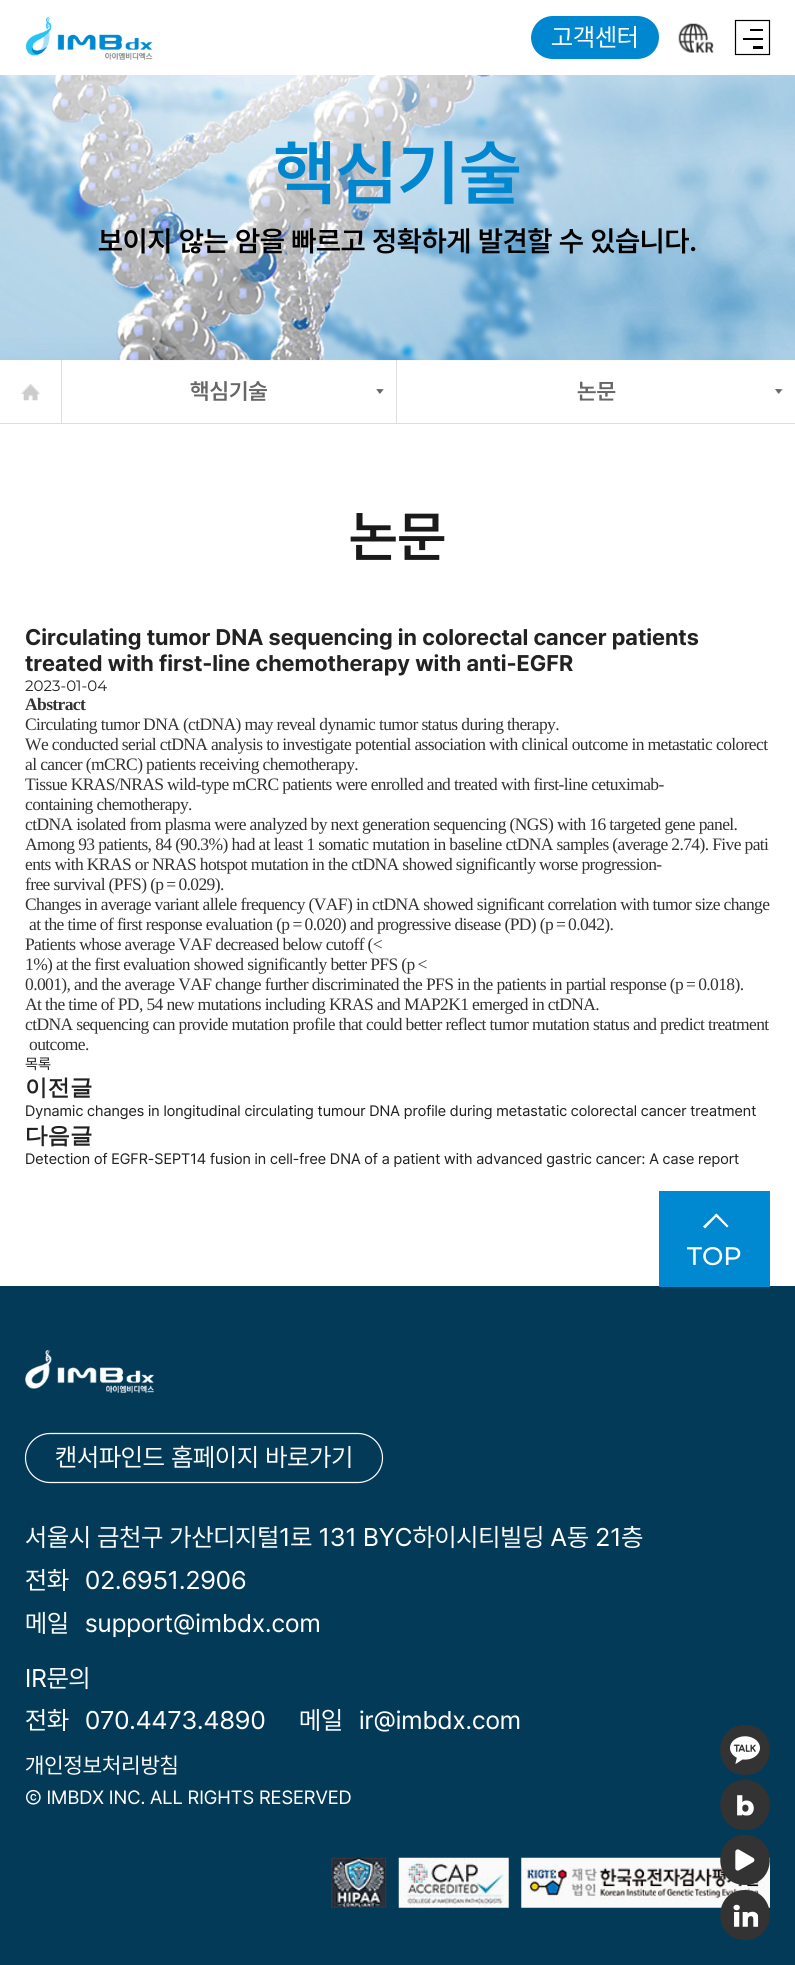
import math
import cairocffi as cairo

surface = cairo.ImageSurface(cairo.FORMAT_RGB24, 795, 1965)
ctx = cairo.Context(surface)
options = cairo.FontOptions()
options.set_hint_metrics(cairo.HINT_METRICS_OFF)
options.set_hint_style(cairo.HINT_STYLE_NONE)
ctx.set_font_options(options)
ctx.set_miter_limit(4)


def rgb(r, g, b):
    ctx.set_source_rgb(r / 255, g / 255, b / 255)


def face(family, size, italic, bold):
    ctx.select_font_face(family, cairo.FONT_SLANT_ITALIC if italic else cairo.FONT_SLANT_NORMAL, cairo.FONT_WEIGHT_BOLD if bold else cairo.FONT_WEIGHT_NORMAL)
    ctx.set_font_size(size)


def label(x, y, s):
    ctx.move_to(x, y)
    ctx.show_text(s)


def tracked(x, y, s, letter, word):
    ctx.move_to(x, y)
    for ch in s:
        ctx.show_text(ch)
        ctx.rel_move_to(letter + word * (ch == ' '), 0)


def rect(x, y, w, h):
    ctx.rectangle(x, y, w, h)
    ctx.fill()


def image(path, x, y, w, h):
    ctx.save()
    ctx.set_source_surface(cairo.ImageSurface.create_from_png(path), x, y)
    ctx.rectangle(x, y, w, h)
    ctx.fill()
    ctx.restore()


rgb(255, 255, 255)
ctx.paint()
image('image0.png', 25, 16, 128, 44)
rgb(0, 135, 207)
ctx.new_path()
ctx.move_to(553, 16)
ctx.line_to(637, 16)
ctx.curve_to(649, 16, 659, 25, 659, 37)
ctx.curve_to(659, 50, 649, 59, 637, 59)
ctx.line_to(553, 59)
ctx.curve_to(541, 59, 531, 50, 531, 37)
ctx.curve_to(532, 25, 541, 16, 553, 16)
ctx.close_path()
ctx.fill()
face('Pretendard', 25.4, 0, 0)
rgb(255, 255, 255)
label(551, 46, '고객센터')
image('image1.png', 678, 23, 36, 30)
ctx.new_path()
ctx.move_to(735.5, 20.5)
ctx.line_to(769.5, 20.5)
ctx.line_to(769.5, 54.5)
ctx.line_to(735.5, 54.5)
ctx.close_path()
rgb(0, 0, 0)
ctx.set_line_width(1.2)
ctx.stroke()
rect(750, 29, 13, 2)
rect(743, 38, 20, 2)
rect(753, 46, 10, 3)
rgb(3, 58, 88)
rect(0, 1286, 795, 679)
rgb(51, 51, 51)
ctx.new_path()
ctx.move_to(745, 1725)
ctx.curve_to(778, 1725, 778, 1775, 745, 1775)
ctx.curve_to(712, 1775, 712, 1725, 745, 1725)
ctx.close_path()
ctx.fill()
image('image2.png', 730, 1736, 30, 28)
ctx.new_path()
ctx.move_to(745, 1780)
ctx.curve_to(778, 1780, 778, 1830, 745, 1830)
ctx.curve_to(712, 1830, 712, 1780, 745, 1780)
ctx.close_path()
ctx.fill()
image('image3.png', 737, 1795, 17, 21)
image('image13.png', 521, 1857, 249, 51)
ctx.new_path()
ctx.move_to(745, 1835)
ctx.curve_to(778, 1835, 778, 1885, 745, 1885)
ctx.curve_to(712, 1885, 712, 1835, 745, 1835)
ctx.close_path()
ctx.fill()
image('image4.png', 735, 1849, 20, 22)
ctx.new_path()
ctx.move_to(745, 1890)
ctx.curve_to(778, 1890, 778, 1940, 745, 1940)
ctx.curve_to(712, 1940, 712, 1890, 745, 1890)
ctx.close_path()
ctx.fill()
image('image5.png', 733, 1904, 26, 23)
image('image6.png', 0, 75, 795, 286)
face('Pretendard SemiBold', 71.5, 0, 0)
rgb(0, 135, 207)
label(274, 198, '핵심기술')
face('Pretendard SemiBold', 28.6, 0, 0)
rgb(0, 0, 0)
label(98, 251, '보이지 않는 암을 빠르고 정확하게 발견할 수 있습니다.')
rgb(222, 222, 222)
rect(0, 423, 795, 1)
rect(61, 360, 1, 63)
image('image7.png', 21, 384, 19, 17)
rect(396, 360, 1, 63)
image('image8.png', 376, 389, 8, 5)
face('Pretendard SemiBold', 22.5, 0, 0)
rgb(102, 102, 102)
label(190, 399, '핵심기술')
image('image9.png', 775, 389, 8, 5)
label(577, 399, '논문')
face('Pretendard SemiBold', 56, 0, 0)
rgb(26, 26, 26)
label(349, 556, '논문')
face('Pretendard', 22.5, 0, 1)
rgb(34, 34, 34)
label(25, 645, 'Circulating tumor DNA sequencing in colorectal cancer patients')
label(25, 671, 'treated with first-line chemotherapy with anti-EGFR')
face('Montserrat', 15, 0, 0)
label(25, 691, '2023-01-04')
face('Liberation Serif', 17.5, 0, 1)
rgb(51, 51, 51)
tracked(25, 710, 'Abstract', -0.62, 0)
face('Liberation Serif', 17.5, 0, 0)
tracked(25, 730, 'Circulating tumor DNA (ctDNA) may reveal dynamic tumor status during therapy.', -0.62, 0)
tracked(25, 750, 'We conducted serial ctDNA analysis to investigate potential association with clinical outcome in metastatic colorect', -0.62, 0)
tracked(25, 770, 'al cancer (mCRC) patients receiving chemotherapy.', -0.62, 0)
tracked(25, 790, 'Tissue KRAS/NRAS wild-type mCRC patients were enrolled and treated with first-line cetuximab-', -0.62, 0)
tracked(25, 810, 'containing chemotherapy.', -0.62, 0)
tracked(25, 830, 'ctDNA isolated from plasma were analyzed by next generation sequencing (NGS) with 16 targeted gene panel.', -0.62, 0)
tracked(25, 850, 'Among 93 patients, 84 (90.3%) had at least 1 somatic mutation in baseline ctDNA samples (average 2.74). Five pati', -0.62, 0)
tracked(25, 870, 'ents with KRAS or NRAS hotspot mutation in the ctDNA showed significantly worse progression-', -0.62, 0)
tracked(25, 890, 'free survival (PFS) (p = 0.029).', -0.62, 0)
tracked(25, 910, 'Changes in average variant allele frequency (VAF) in ctDNA showed significant correlation with tumor size change', -0.62, 0)
tracked(29, 930, 'at the time of first response evaluation (p = 0.020) and progressive disease (PD) (p = 0.042).', -0.62, 0)
tracked(25, 950, 'Patients whose average VAF decreased below cutoff (<', -0.62, 0)
tracked(25, 970, '1%) at the first evaluation showed significantly better PFS (p <', -0.62, 0)
tracked(25, 990, '0.001), and the average VAF change further discriminated the PFS in the patients in partial response (p = 0.018).', -0.62, 0)
tracked(25, 1010, 'At the time of PD, 54 new mutations including KRAS and MAP2K1 emerged in ctDNA.', -0.62, 0)
tracked(25, 1030, 'ctDNA sequencing can provide mutation profile that could better reflect tumor mutation status and predict treatment', -0.62, 0)
tracked(29, 1050, 'outcome.', -0.62, 0)
face('Pretendard', 15, 0, 0)
rgb(34, 34, 34)
label(25, 1069, '목록')
face('WenQuanYi Zen Hei', 22.5, 0, 1)
label(25, 1095, '이전글')
face('Pretendard', 15, 0, 0)
label(25, 1116, 'Dynamic changes in longitudinal circulating tumour DNA profile during metastatic colorectal cancer treatment')
face('WenQuanYi Zen Hei', 22.5, 0, 1)
label(25, 1143, '다음글')
face('Pretendard', 15, 0, 0)
label(25, 1164, 'Detection of EGFR-SEPT14 fusion in cell-free DNA of a patient with advanced gastric cancer: A case report')
rgb(0, 137, 208)
rect(659, 1191, 111, 96)
rgb(255, 255, 255)
ctx.new_path()
ctx.move_to(716.5, 1213.5)
ctx.line_to(728.5, 1226)
ctx.line_to(727, 1227.5)
ctx.line_to(714.5, 1215)
ctx.close_path()
ctx.fill()
ctx.new_path()
ctx.move_to(703, 1226.5)
ctx.line_to(715.5, 1214.5)
ctx.line_to(717, 1216)
ctx.line_to(705, 1228.5)
ctx.close_path()
ctx.fill()
face('Montserrat Medium', 25.4, 0, 0)
label(687, 1265, 'TOP')
image('image10.png', 25, 1350, 129, 43)
ctx.new_path()
ctx.move_to(50, 1433.5)
ctx.line_to(358, 1433.5)
ctx.curve_to(371.5, 1433.5, 382.5, 1444.5, 382.5, 1458)
ctx.curve_to(382.5, 1471.5, 371.5, 1482.5, 358, 1482.5)
ctx.line_to(50, 1482.5)
ctx.curve_to(36.5, 1482.5, 25.5, 1471.5, 25.5, 1458)
ctx.curve_to(25.5, 1444.5, 36.5, 1433.5, 50, 1433.5)
ctx.close_path()
ctx.stroke()
face('Pretendard', 25.4, 0, 0)
label(55, 1466, '캔서파인드 홈페이지 바로가기')
label(25, 1546, '서울시 금천구 가산디지털1로 131 BYC하이시티빌딩 A동 21층')
label(25, 1589, '전화')
label(85, 1589, '02.6951.2906')
label(25, 1632, '메일')
label(85, 1632, 'support@imbdx.com')
label(25, 1687, 'IR문의')
label(25, 1729, '전화')
label(85, 1729, '070.4473.4890')
label(299, 1729, '메일')
label(359, 1729, 'ir@imbdx.com')
face('Pretendard', 22.25, 0, 0)
label(25, 1773, '개인정보처리방침')
face('Pretendard', 19.1, 0, 0)
label(25, 1804, 'Ⓒ IMBDX INC. ALL RIGHTS RESERVED')
image('image11.png', 331, 1857, 56, 51)
image('image12.png', 398, 1857, 111, 51)
surface.write_to_png('render.png')
